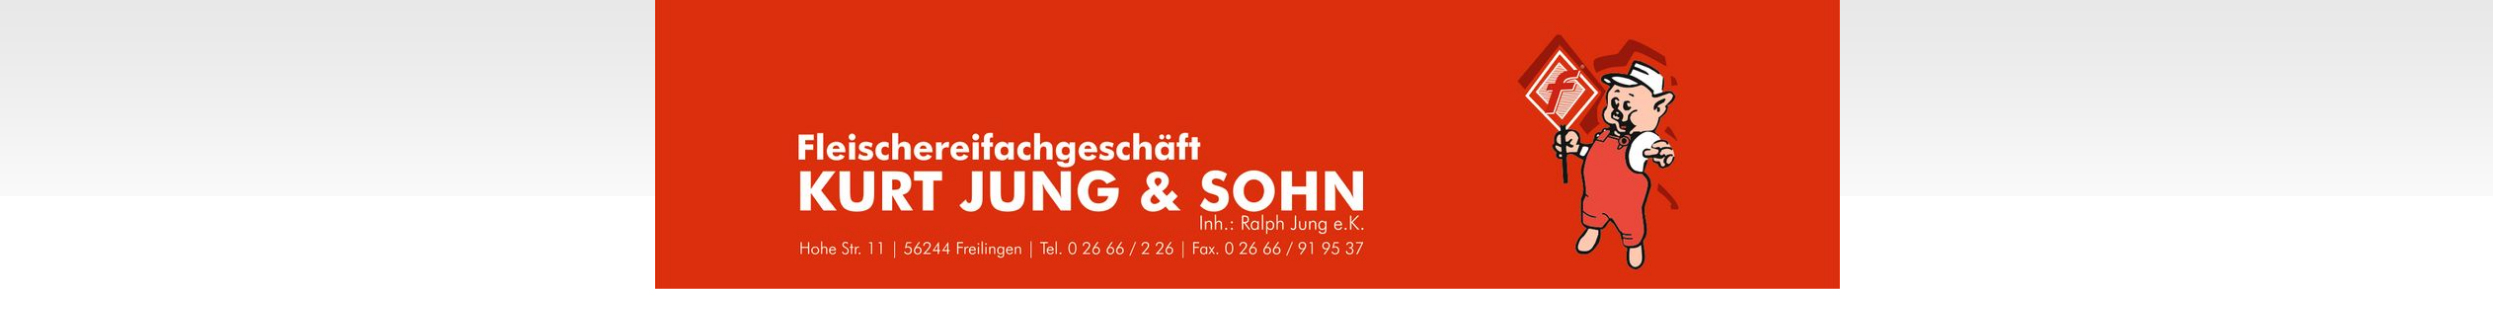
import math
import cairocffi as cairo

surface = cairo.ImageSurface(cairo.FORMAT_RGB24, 2493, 321)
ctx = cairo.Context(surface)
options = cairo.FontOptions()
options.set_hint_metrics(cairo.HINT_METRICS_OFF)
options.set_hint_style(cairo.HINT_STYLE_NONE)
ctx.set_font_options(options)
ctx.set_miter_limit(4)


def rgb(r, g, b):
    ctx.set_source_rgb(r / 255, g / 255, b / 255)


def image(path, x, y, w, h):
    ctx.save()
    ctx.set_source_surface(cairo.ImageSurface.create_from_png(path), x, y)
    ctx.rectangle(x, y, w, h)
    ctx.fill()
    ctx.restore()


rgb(255, 255, 255)
ctx.paint()
image('image0.png', 0, 0, 2493, 196)
image('image1.png', 655, 0, 1185, 289)
surface.write_to_png('render.png')
